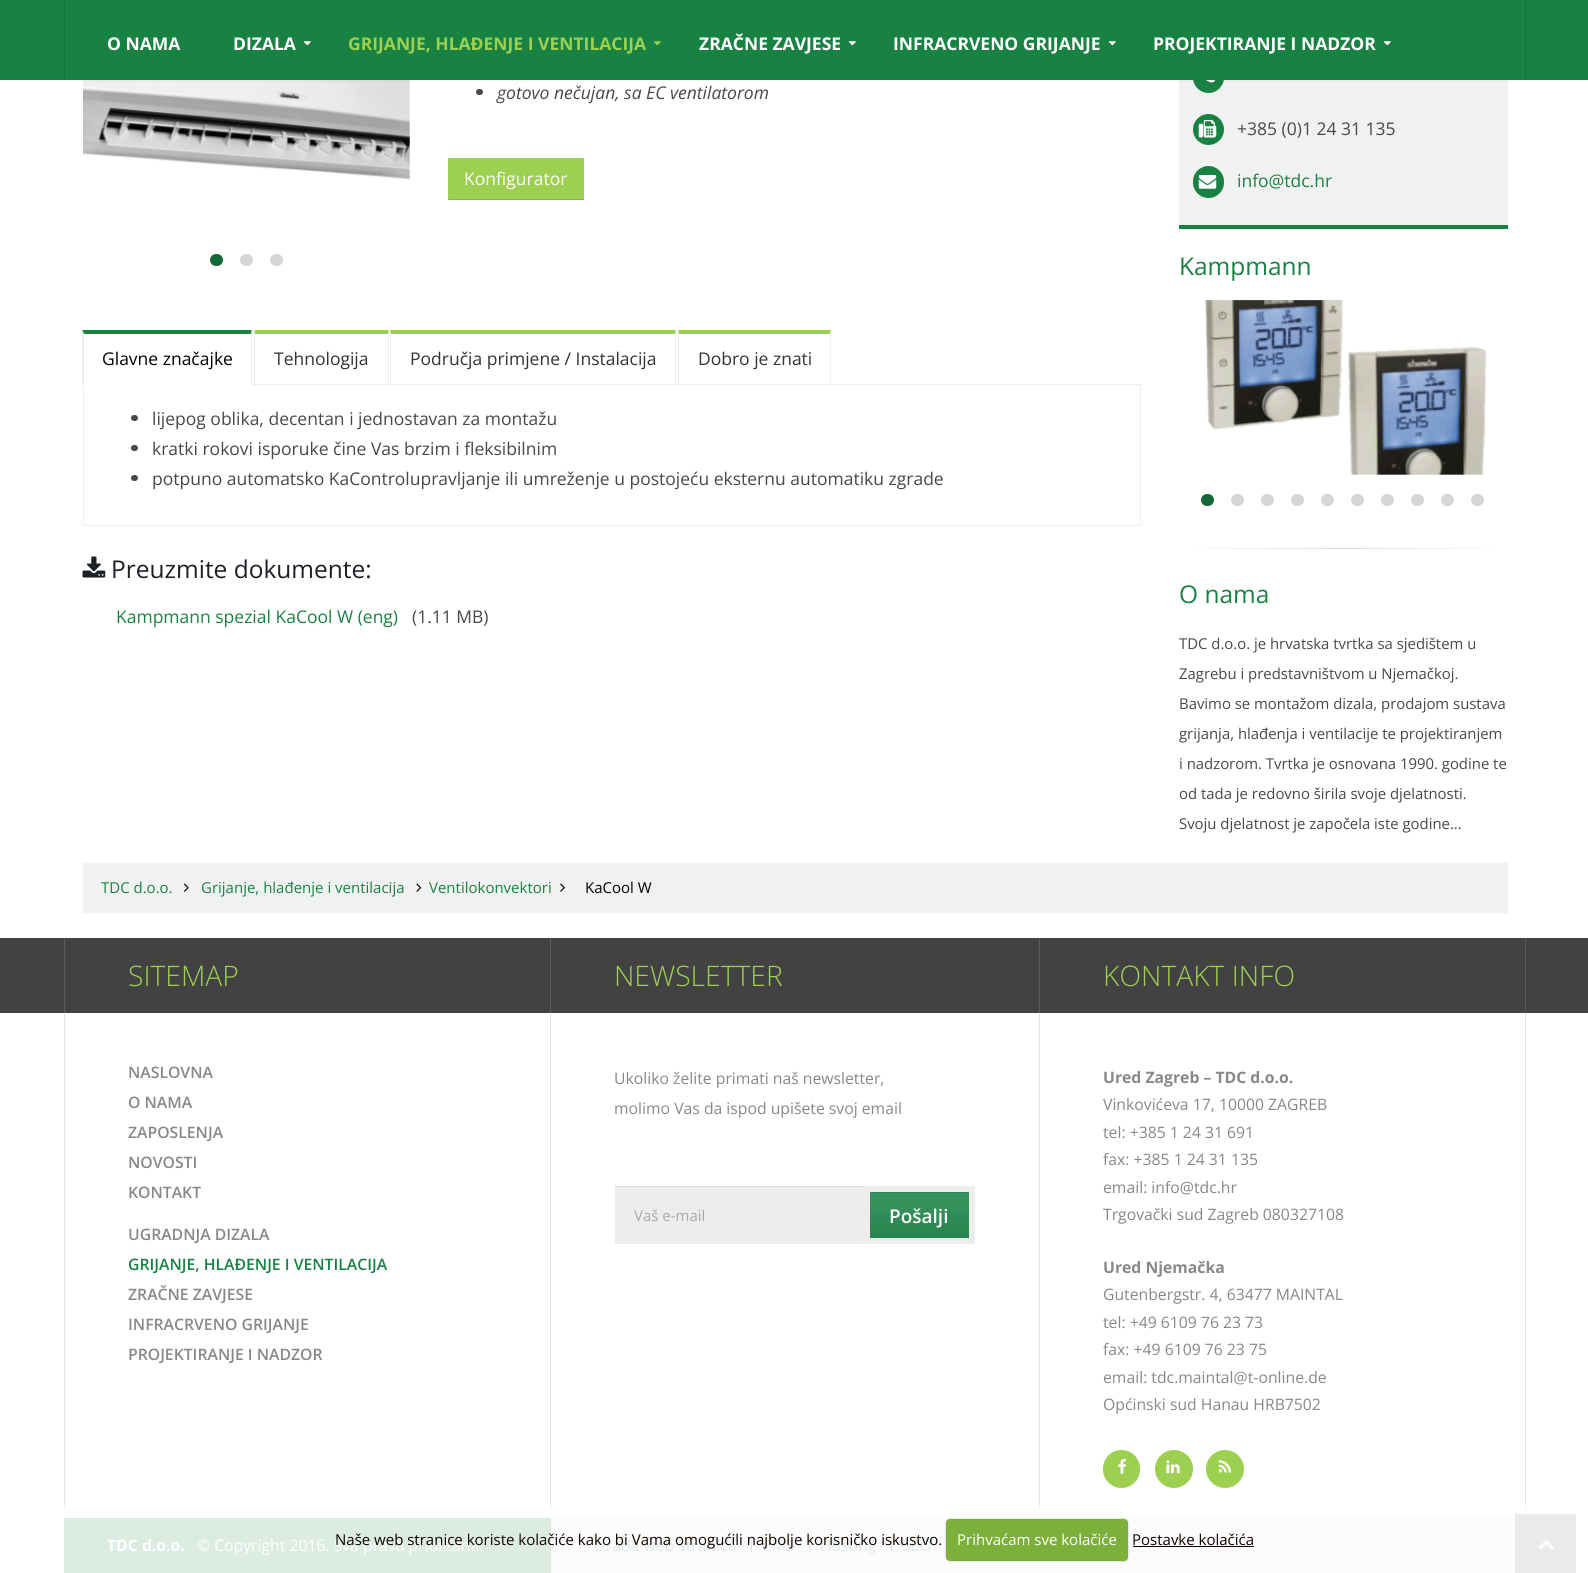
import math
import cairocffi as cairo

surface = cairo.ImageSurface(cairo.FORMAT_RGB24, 1588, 1573)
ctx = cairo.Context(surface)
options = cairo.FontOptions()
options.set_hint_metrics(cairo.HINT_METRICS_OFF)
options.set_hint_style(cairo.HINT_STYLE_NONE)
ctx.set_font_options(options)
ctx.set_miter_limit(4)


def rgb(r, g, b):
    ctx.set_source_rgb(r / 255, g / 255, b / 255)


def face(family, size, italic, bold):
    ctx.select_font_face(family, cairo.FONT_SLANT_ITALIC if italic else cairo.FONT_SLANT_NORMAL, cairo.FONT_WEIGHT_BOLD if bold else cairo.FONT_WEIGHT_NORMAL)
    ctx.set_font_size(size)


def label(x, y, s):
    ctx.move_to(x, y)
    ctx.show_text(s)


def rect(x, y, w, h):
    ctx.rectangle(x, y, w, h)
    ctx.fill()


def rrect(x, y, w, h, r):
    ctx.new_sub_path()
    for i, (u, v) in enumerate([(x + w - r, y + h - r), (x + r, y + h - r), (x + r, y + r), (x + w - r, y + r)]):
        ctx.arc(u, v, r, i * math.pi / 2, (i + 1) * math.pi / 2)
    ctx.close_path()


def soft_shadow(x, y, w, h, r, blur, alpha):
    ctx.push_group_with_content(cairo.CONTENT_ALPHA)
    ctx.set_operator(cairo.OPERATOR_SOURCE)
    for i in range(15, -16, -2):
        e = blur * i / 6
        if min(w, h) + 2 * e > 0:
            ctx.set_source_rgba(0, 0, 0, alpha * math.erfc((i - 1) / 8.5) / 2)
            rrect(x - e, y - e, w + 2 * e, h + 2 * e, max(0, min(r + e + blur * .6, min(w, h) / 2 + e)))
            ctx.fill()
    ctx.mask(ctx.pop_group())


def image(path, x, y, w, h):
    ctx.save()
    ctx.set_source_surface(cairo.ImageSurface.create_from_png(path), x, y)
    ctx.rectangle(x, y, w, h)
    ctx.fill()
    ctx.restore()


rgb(255, 255, 255)
ctx.paint()
rgb(234, 234, 234)
rect(1515, 1514, 61, 59)
image('image2.png', 83, 80, 327, 100)
rgb(240, 241, 241)
rect(1179, 80, 329, 145)
rgb(24, 130, 67)
rrect(1193, 61, 31, 32, 15.5)
ctx.fill()
image('image4.png', 1206, 80, 9, 3)
rgb(0, 0, 0)
soft_shadow(0, -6, 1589, 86, 0, 2, 0.1)
rgb(24, 130, 67)
rect(0, 0, 1588, 80)
rgb(13, 120, 57)
rect(1525, 0, 1, 80)
rect(64, 0, 1, 80)
face('Open Sans', 17.5, 0, 1)
rgb(255, 255, 255)
label(107, 50, 'O NAMA')
label(233, 50, 'DIZALA')
image('image0.png', 303, 41, 8, 5)
rgb(157, 208, 80)
label(348, 50, 'GRIJANJE, HLAĐENJE I VENTILACIJA')
image('image1.png', 653, 41, 8, 5)
rgb(255, 255, 255)
label(699, 50, 'ZRAČNE ZAVJESE')
image('image0.png', 848, 41, 8, 5)
label(893, 50, 'INFRACRVENO GRIJANJE')
image('image0.png', 1108, 41, 8, 5)
label(1153, 50, 'PROJEKTIRANJE I NADZOR')
image('image0.png', 1383, 41, 8, 5)
rgb(19, 104, 54)
rrect(210, 254, 13, 12, 6)
ctx.fill()
rgb(214, 214, 214)
rrect(240, 254, 13, 12, 6)
ctx.fill()
rrect(270, 254, 13, 12, 6)
ctx.fill()
rgb(72, 72, 72)
rrect(476, 89, 7, 6, 3)
ctx.fill()
face('Open Sans', 17.5, 1, 0)
label(497, 99, 'gotovo nečujan, sa EC ventilatorom')
rgb(157, 208, 80)
rect(449, 158, 135, 41)
rgb(132, 187, 50)
rect(448, 199, 136, 1)
rgb(157, 208, 80)
rect(448, 158, 1, 42)
face('Open Sans', 17.5, 0, 0)
rgb(255, 255, 255)
label(464, 185, 'Konfigurator')
rgb(238, 238, 238)
rect(253, 384, 888, 1)
rgb(24, 130, 67)
ctx.new_path()
ctx.move_to(82, 330)
ctx.line_to(252, 330)
ctx.line_to(251, 334)
ctx.line_to(84, 334)
ctx.close_path()
ctx.fill()
rgb(238, 238, 238)
ctx.new_path()
ctx.move_to(252, 330)
ctx.line_to(252, 385)
ctx.line_to(251, 384)
ctx.line_to(251, 334)
ctx.close_path()
ctx.fill()
ctx.new_path()
ctx.move_to(82, 385)
ctx.line_to(82, 330)
ctx.line_to(84, 334)
ctx.line_to(84, 384)
ctx.close_path()
ctx.fill()
rgb(0, 0, 0)
label(102, 365, 'Glavne značajke')
rgb(157, 208, 80)
ctx.new_path()
ctx.move_to(254, 330)
ctx.line_to(389, 330)
ctx.line_to(388, 334)
ctx.line_to(255, 334)
ctx.close_path()
ctx.fill()
rgb(238, 238, 238)
ctx.new_path()
ctx.move_to(389, 330)
ctx.line_to(389, 384)
ctx.line_to(388, 384)
ctx.line_to(388, 334)
ctx.close_path()
ctx.fill()
ctx.new_path()
ctx.move_to(254, 384)
ctx.line_to(254, 330)
ctx.line_to(255, 334)
ctx.line_to(255, 384)
ctx.close_path()
ctx.fill()
rgb(51, 51, 51)
label(274, 365, 'Tehnologija')
rgb(157, 208, 80)
ctx.new_path()
ctx.move_to(390, 330)
ctx.line_to(676, 330)
ctx.line_to(675, 334)
ctx.line_to(391, 334)
ctx.close_path()
ctx.fill()
rgb(238, 238, 238)
ctx.new_path()
ctx.move_to(676, 330)
ctx.line_to(676, 384)
ctx.line_to(675, 384)
ctx.line_to(675, 334)
ctx.close_path()
ctx.fill()
ctx.new_path()
ctx.move_to(390, 384)
ctx.line_to(390, 330)
ctx.line_to(391, 334)
ctx.line_to(391, 384)
ctx.close_path()
ctx.fill()
rgb(51, 51, 51)
label(410, 365, 'Područja primjene / Instalacija')
rgb(157, 208, 80)
ctx.new_path()
ctx.move_to(678, 330)
ctx.line_to(831, 330)
ctx.line_to(830, 334)
ctx.line_to(679, 334)
ctx.close_path()
ctx.fill()
rgb(238, 238, 238)
ctx.new_path()
ctx.move_to(831, 330)
ctx.line_to(831, 384)
ctx.line_to(830, 384)
ctx.line_to(830, 334)
ctx.close_path()
ctx.fill()
ctx.new_path()
ctx.move_to(678, 384)
ctx.line_to(678, 330)
ctx.line_to(679, 334)
ctx.line_to(679, 384)
ctx.close_path()
ctx.fill()
rgb(51, 51, 51)
label(698, 365, 'Dobro je znati')
rgb(238, 238, 238)
rect(1140, 385, 1, 141)
rect(83, 525, 1058, 1)
rect(83, 385, 1, 141)
rgb(72, 72, 72)
rrect(131, 415, 7, 6, 3)
ctx.fill()
label(152, 425, 'lijepog oblika, decentan i jednostavan za montažu')
rrect(131, 445, 7, 6, 3)
ctx.fill()
label(152, 455, 'kratki rokovi isporuke čine Vas brzim i fleksibilnim')
rrect(131, 475, 7, 6, 3)
ctx.fill()
label(152, 485, 'potpuno automatsko KaControlupravljanje ili umreženje u postojeću eksternu automatiku zgrade')
image('image3.png', 82, 556, 24, 22)
face('Open Sans', 24.5, 0, 0)
rgb(29, 33, 39)
label(111, 578, 'Preuzmite dokumente:')
face('Open Sans', 17.5, 0, 0)
rgb(24, 130, 67)
label(116, 623, 'Kampmann spezial KaCool W (eng)')
rgb(72, 72, 72)
label(412, 623, '(1.11 MB)')
rgb(24, 130, 67)
rect(1179, 225, 329, 4)
ctx.new_path()
ctx.arc(1208.5, 129.5, 15.5, 0, 2 * math.pi)
ctx.fill()
image('image5.png', 1198, 120, 19, 18)
rgb(72, 72, 72)
label(1237, 135, '+385 (0)1 24 31 135')
rgb(24, 130, 67)
rrect(1193, 166, 31, 32, 15.5)
ctx.fill()
image('image6.png', 1198, 175, 19, 14)
label(1237, 187, 'info@tdc.hr')
face('Open Sans', 24.5, 0, 0)
label(1179, 275, 'Kampmann')
image('image7.png', 1205, 300, 282, 175)
rgb(19, 104, 54)
rrect(1201, 494, 13, 12, 6)
ctx.fill()
rgb(214, 214, 214)
rrect(1231, 494, 13, 12, 6)
ctx.fill()
rrect(1261, 494, 13, 12, 6)
ctx.fill()
rrect(1291, 494, 13, 12, 6)
ctx.fill()
rrect(1321, 494, 13, 12, 6)
ctx.fill()
rrect(1351, 494, 13, 12, 6)
ctx.fill()
rrect(1381, 494, 13, 12, 6)
ctx.fill()
rrect(1411, 494, 13, 12, 6)
ctx.fill()
rrect(1441, 494, 13, 12, 6)
ctx.fill()
rrect(1471, 494, 13, 12, 6)
ctx.fill()
gradient = cairo.LinearGradient(1179, 548, 1508, 548)
gradient.add_color_stop_rgba(0, 1, 1, 1, 1)
gradient.add_color_stop_rgba(0.5, 0.859, 0.859, 0.859, 1)
gradient.add_color_stop_rgba(1, 1, 1, 1, 1)
ctx.set_source(gradient)
rect(1190, 548, 307, 1)
rgb(24, 130, 67)
label(1179, 603, 'O nama')
face('Open Sans', 14.9, 0, 0)
rgb(72, 72, 72)
label(1179, 649, 'TDC d.o.o. je hrvatska tvrtka sa sjedištem u')
label(1179, 679, 'Zagrebu i predstavništvom u Njemačkoj.')
label(1179, 709, 'Bavimo se montažom dizala, prodajom sustava')
label(1179, 739, 'grijanja, hlađenja i ventilacije te projektiranjem')
label(1179, 769, 'i nadzorom. Tvrtka je osnovana 1990. godine te')
label(1179, 799, 'od tada je redovno širila svoje djelatnosti.')
label(1179, 829, 'Svoju djelatnost je započela iste godine...')
rgb(240, 241, 241)
rect(83, 863, 1425, 50)
face('Open Sans', 15, 0, 0)
rgb(24, 130, 67)
label(101, 893, 'TDC d.o.o.')
image('image8.png', 183, 883, 6, 9)
label(201, 893, 'Grijanje, hlađenje i ventilacija')
image('image9.png', 416, 883, 6, 9)
label(429, 893, 'Ventilokonvektori')
image('image10.png', 560, 883, 5, 9)
rgb(0, 0, 0)
label(585, 893, 'KaCool W')
rgb(66, 66, 66)
rect(0, 938, 1588, 75)
rgb(90, 90, 90)
rect(550, 938, 1, 75)
rect(64, 938, 1, 75)
face('Open Sans Light', 28.25, 0, 0)
rgb(157, 208, 80)
label(128, 986, 'SITEMAP')
label(614, 986, 'NEWSLETTER')
rgb(90, 90, 90)
rect(1525, 938, 1, 75)
rect(1039, 938, 1, 75)
rgb(157, 208, 80)
label(1103, 986, 'KONTAKT INFO')
rgb(230, 230, 230)
rect(550, 1013, 1, 493)
rgb(251, 251, 251)
rect(550, 1506, 1, 9)
rgb(230, 230, 230)
rect(64, 1013, 1, 493)
rgb(251, 251, 251)
rect(64, 1506, 1, 9)
face('Open Sans SemiBold', 15.75, 0, 0)
rgb(136, 136, 136)
label(128, 1078, 'NASLOVNA')
label(128, 1108, 'O NAMA')
label(128, 1138, 'ZAPOSLENJA')
label(128, 1168, 'NOVOSTI')
label(128, 1198, 'KONTAKT')
label(128, 1240, 'UGRADNJA DIZALA')
rgb(24, 130, 67)
label(128, 1270, 'GRIJANJE, HLAĐENJE I VENTILACIJA')
rgb(136, 136, 136)
label(128, 1300, 'ZRAČNE ZAVJESE')
label(128, 1330, 'INFRACRVENO GRIJANJE')
label(128, 1360, 'PROJEKTIRANJE I NADZOR')
face('Open Sans', 15.75, 0, 0)
label(614, 1084, 'Ukoliko želite primati naš newsletter,')
label(614, 1114, 'molimo Vas da ispod upišete svoj email')
rgb(237, 237, 237)
rect(615, 1187, 249, 57)
rgb(222, 222, 222)
rect(615, 1186, 250, 1)
face('Open Sans', 15, 0, 0)
rgb(168, 168, 168)
label(634, 1221, 'Vaš e-mail')
gradient = cairo.LinearGradient(919, 1148, 919, 1193)
gradient.add_color_stop_rgba(0, 0.231, 0.584, 0.373, 1)
gradient.add_color_stop_rgba(1, 0.149, 0.518, 0.302, 1)
ctx.set_source(gradient)
rect(864, 1192, 111, 1)
gradient = cairo.LinearGradient(919, 1193, 919, 1238)
gradient.add_color_stop_rgba(0, 0.231, 0.584, 0.373, 1)
gradient.add_color_stop_rgba(1, 0.149, 0.518, 0.302, 1)
ctx.set_source(gradient)
rect(870, 1193, 99, 45)
ctx.rectangle(867, 1189, 105, 52)
rgb(237, 237, 237)
ctx.set_line_width(6)
ctx.stroke()
face('Open Sans SemiBold', 19, 0, 0)
rgb(255, 255, 255)
label(889, 1223, 'Pošalji')
rgb(230, 230, 230)
rect(1525, 1013, 1, 493)
rgb(251, 251, 251)
rect(1525, 1506, 1, 12)
rgb(233, 233, 233)
rect(1525, 1514, 1, 4)
rgb(230, 230, 230)
rect(1039, 1013, 1, 493)
rgb(251, 251, 251)
rect(1039, 1506, 1, 12)
face('Open Sans', 15.75, 0, 1)
rgb(136, 136, 136)
label(1103, 1083, 'Ured Zagreb – TDC d.o.o.')
face('Open Sans', 15.75, 0, 0)
label(1103, 1110, 'Vinkovićeva 17, 10000 ZAGREB')
label(1103, 1138, 'tel: +385 1 24 31 691')
label(1103, 1165, 'fax: +385 1 24 31 135')
label(1103, 1193, 'email: info@tdc.hr')
label(1103, 1220, 'Trgovački sud Zagreb 080327108')
face('Open Sans', 15.75, 0, 1)
label(1103, 1273, 'Ured Njemačka')
face('Open Sans', 15.75, 0, 0)
label(1103, 1300, 'Gutenbergstr. 4, 63477 MAINTAL')
label(1103, 1328, 'tel: +49 6109 76 23 73')
label(1103, 1355, 'fax: +49 6109 76 23 75')
label(1103, 1383, 'email: tdc.maintal@t-online.de')
label(1103, 1410, 'Općinski sud Hanau HRB7502')
rgb(157, 208, 80)
rrect(1103, 1450, 37, 38, 18.5)
ctx.fill()
image('image11.png', 1118, 1459, 8, 15)
ctx.arc(1174, 1469, 19, 0, 2 * math.pi)
ctx.fill()
image('image12.png', 1166, 1460, 14, 14)
ctx.arc(1225, 1469, 19, 0, 2 * math.pi)
ctx.fill()
image('image13.png', 1218, 1460, 14, 13)
rgb(252, 252, 252)
rect(551, 1518, 964, 55)
rgb(220, 236, 227)
rect(64, 1518, 487, 55)
face('Open Sans', 15.75, 0, 1)
rgb(255, 255, 255)
label(107, 1551, 'TDC d.o.o.')
face('Open Sans', 15.75, 0, 0)
label(197, 1551, '© Copyright 2016. Sva prava pridržana.')
rgb(220, 236, 227)
label(594, 1551, 'Izrada web stranica')
rect(751, 1538, 1, 15)
label(762, 1551, 'CMS')
rect(809, 1538, 1, 15)
label(820, 1551, 'Hosting')
rect(891, 1538, 1, 15)
label(902, 1551, 'SEO')
face('Open Sans', 15, 0, 0)
rgb(17, 3, 0)
label(335, 1545, 'Naše web stranice koriste kolačiće kako bi Vama omogućili najbolje korisničko iskustvo.')
rgb(0, 0, 0)
soft_shadow(946, 1519, 182, 42, 4, 1, 0.25)
rgb(125, 175, 59)
rrect(946, 1519, 182, 42, 4)
ctx.fill()
rgb(255, 255, 255)
label(957, 1545, 'Prihvaćam sve kolačiće')
rgb(17, 3, 0)
label(1132, 1545, 'Postavke kolačića')
rect(1133, 1546, 121, 1)
image('image14.png', 1538, 1539, 16, 11)
surface.write_to_png('render.png')
